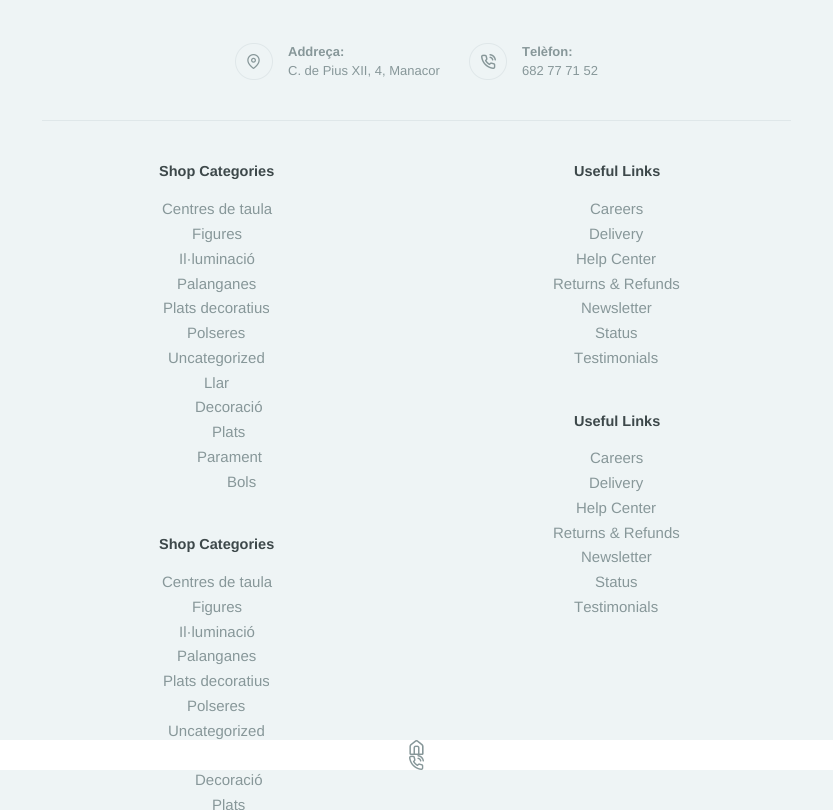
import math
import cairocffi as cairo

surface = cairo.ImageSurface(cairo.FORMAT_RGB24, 833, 810)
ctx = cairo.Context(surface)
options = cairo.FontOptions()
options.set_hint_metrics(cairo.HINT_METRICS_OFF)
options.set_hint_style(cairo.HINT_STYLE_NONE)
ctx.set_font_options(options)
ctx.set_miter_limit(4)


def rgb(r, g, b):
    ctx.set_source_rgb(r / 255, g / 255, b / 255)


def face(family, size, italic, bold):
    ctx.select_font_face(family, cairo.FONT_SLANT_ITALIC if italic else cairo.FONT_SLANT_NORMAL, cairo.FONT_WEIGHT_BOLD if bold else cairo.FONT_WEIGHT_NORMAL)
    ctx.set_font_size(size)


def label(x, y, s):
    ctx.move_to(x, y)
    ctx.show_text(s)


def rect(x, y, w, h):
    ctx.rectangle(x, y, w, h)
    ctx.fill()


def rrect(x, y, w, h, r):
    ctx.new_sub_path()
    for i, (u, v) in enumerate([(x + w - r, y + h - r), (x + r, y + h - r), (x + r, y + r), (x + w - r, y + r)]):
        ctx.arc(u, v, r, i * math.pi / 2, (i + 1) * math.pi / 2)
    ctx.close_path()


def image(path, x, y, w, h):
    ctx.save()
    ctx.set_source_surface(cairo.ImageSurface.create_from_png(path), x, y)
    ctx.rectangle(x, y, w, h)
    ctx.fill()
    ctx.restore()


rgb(238, 244, 245)
ctx.paint()
rgb(223, 231, 233)
rect(42, 120, 749, 1)
rrect(235.5, 43.5, 37, 36, 18)
ctx.set_line_width(1)
ctx.stroke()
image('image0.png', 247, 54, 13, 15)
face('Liberation Sans', 13, 0, 1)
rgb(135, 151, 153)
label(288, 56, 'Addreça:')
face('Liberation Sans', 13, 0, 0)
label(288, 75, 'C. de Pius XII, 4, Manacor')
rrect(469.5, 43.5, 37, 36, 18)
rgb(223, 231, 233)
ctx.stroke()
image('image1.png', 481, 54, 15, 15)
face('Liberation Sans', 13, 0, 1)
rgb(135, 151, 153)
label(522, 56, 'Telèfon:')
face('Liberation Sans', 13, 0, 0)
label(522, 75, '682 77 71 52')
face('Liberation Sans', 14.5, 0, 1)
rgb(61, 72, 74)
label(159, 176, 'Shop Categories')
face('Liberation Sans', 15, 0, 0)
rgb(135, 151, 153)
label(162, 214, 'Centres de taula')
label(192, 239, 'Figures')
label(179, 264, 'Il·luminació')
label(177, 289, 'Palanganes')
label(163, 313, 'Plats decoratius')
label(187, 338, 'Polseres')
label(168, 363, 'Uncategorized')
label(204, 388, 'Llar')
label(195, 412, 'Decoració')
label(212, 437, 'Plats')
label(197, 462, 'Parament')
label(227, 487, 'Bols')
face('Liberation Sans', 14.5, 0, 1)
rgb(61, 72, 74)
label(159, 549, 'Shop Categories')
face('Liberation Sans', 15, 0, 0)
rgb(135, 151, 153)
label(162, 587, 'Centres de taula')
label(192, 612, 'Figures')
label(179, 637, 'Il·luminació')
label(177, 661, 'Palanganes')
label(163, 686, 'Plats decoratius')
label(187, 711, 'Polseres')
label(168, 736, 'Uncategorized')
label(195, 785, 'Decoració')
label(212, 810, 'Plats')
face('Liberation Sans', 14.5, 0, 1)
rgb(61, 72, 74)
label(574, 176, 'Useful Links')
face('Liberation Sans', 15, 0, 0)
rgb(135, 151, 153)
label(590, 214, 'Careers')
label(589, 239, 'Delivery')
label(576, 264, 'Help Center')
label(553, 289, 'Returns & Refunds')
label(581, 313, 'Newsletter')
label(595, 338, 'Status')
label(574, 363, 'Testimonials')
face('Liberation Sans', 14.5, 0, 1)
rgb(61, 72, 74)
label(574, 426, 'Useful Links')
face('Liberation Sans', 15, 0, 0)
rgb(135, 151, 153)
label(590, 463, 'Careers')
label(589, 488, 'Delivery')
label(576, 513, 'Help Center')
label(553, 538, 'Returns & Refunds')
label(581, 562, 'Newsletter')
label(595, 587, 'Status')
label(574, 612, 'Testimonials')
rgb(255, 255, 255)
rect(0, 740, 833, 30)
image('image2.png', 409, 740, 15, 15)
image('image3.png', 409, 755, 15, 15)
surface.write_to_png('render.png')
